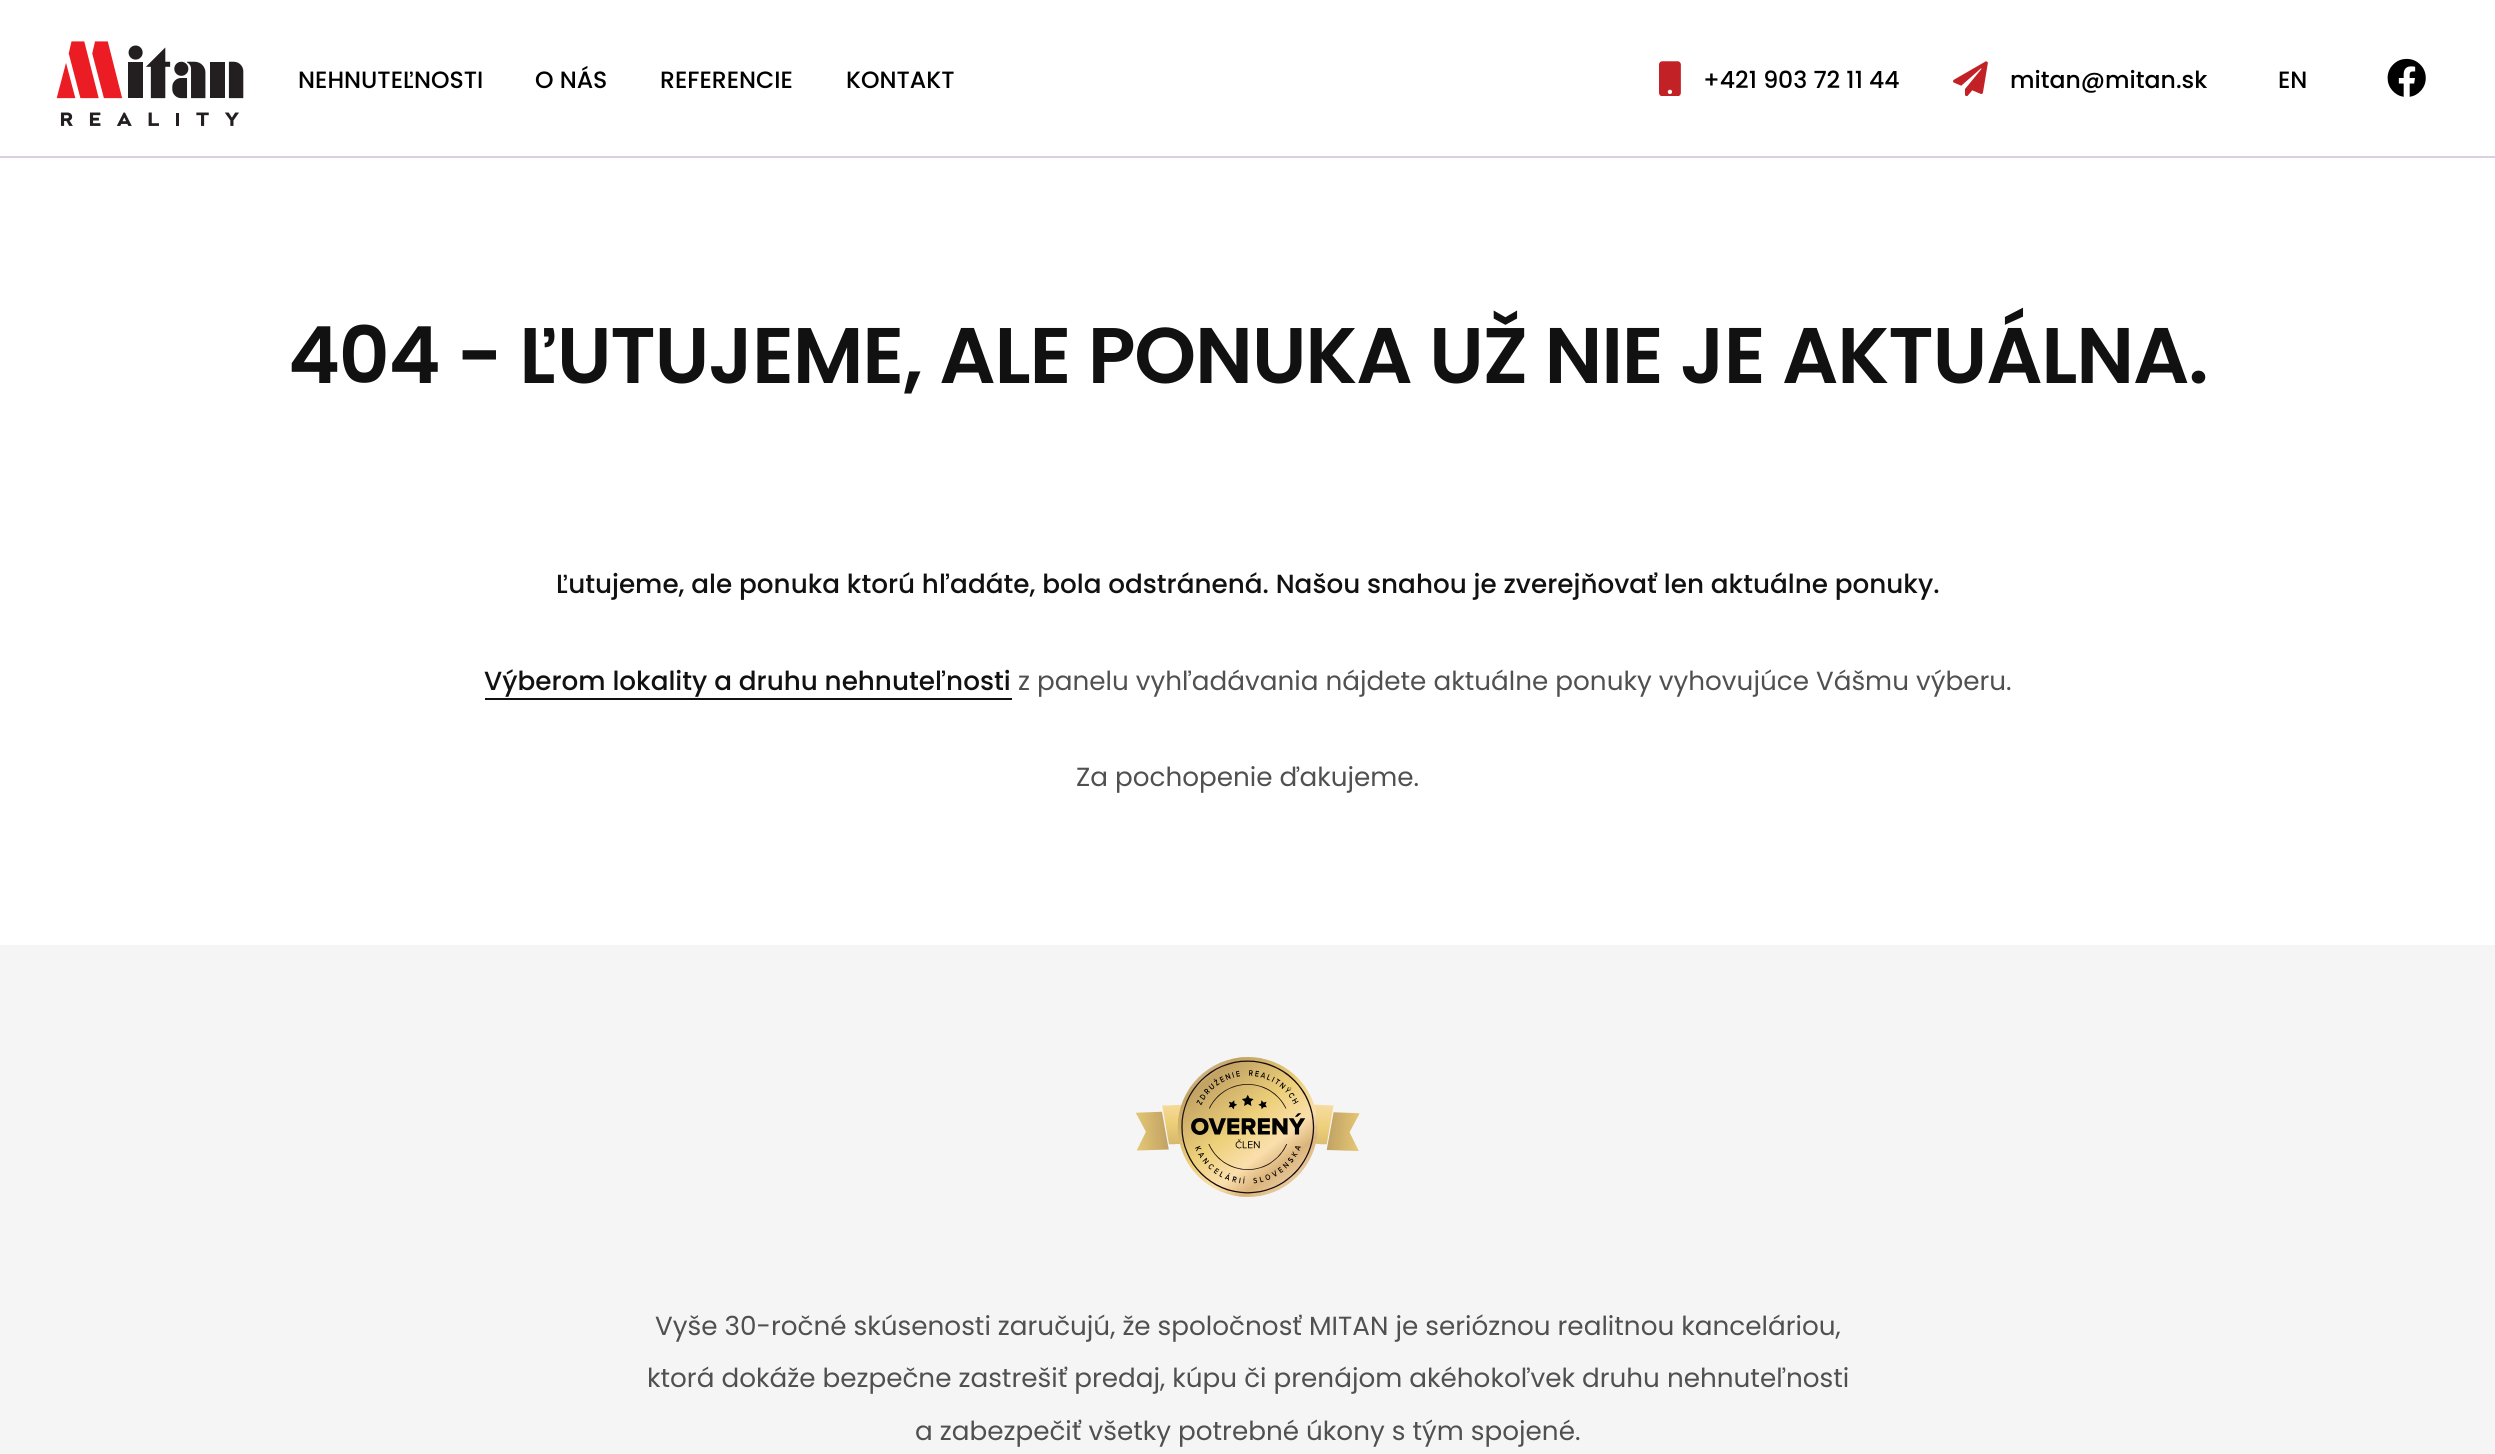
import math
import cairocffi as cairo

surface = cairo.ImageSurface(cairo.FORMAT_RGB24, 2495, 1454)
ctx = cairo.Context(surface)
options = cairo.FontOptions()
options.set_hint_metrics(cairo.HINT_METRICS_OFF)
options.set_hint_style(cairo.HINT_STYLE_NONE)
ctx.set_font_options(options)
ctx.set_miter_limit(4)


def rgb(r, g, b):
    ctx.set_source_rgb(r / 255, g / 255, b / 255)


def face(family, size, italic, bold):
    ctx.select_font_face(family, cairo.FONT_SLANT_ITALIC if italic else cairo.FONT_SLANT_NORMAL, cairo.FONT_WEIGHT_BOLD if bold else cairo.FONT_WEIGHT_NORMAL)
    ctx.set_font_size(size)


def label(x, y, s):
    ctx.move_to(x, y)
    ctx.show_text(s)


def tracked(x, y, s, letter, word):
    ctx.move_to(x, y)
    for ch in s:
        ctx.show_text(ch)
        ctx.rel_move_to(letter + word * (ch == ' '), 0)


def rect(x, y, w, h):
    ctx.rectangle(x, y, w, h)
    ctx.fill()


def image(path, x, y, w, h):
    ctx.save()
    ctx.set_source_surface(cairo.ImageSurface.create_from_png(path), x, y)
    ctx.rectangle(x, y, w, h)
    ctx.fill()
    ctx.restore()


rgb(255, 255, 255)
ctx.paint()
rgb(217, 207, 230)
rect(0, 156, 2495, 2)
image('image0.png', 56, 41, 188, 85)
face('Poppins Medium', 23.6, 0, 0)
rgb(0, 0, 0)
label(298, 88, 'NEHNUTEĽNOSTI')
label(535, 88, 'O NÁS')
label(660, 88, 'REFERENCIE')
label(846, 88, 'KONTAKT')
image('image1.png', 1659, 61, 22, 35)
label(1703, 88, '+421 903 72 11 44')
image('image2.png', 1953, 61, 35, 35)
label(2010, 88, 'mitan@mitan.sk')
label(2278, 88, 'EN')
image('image3.png', 2387, 58, 39, 39)
face('Poppins SemiBold', 78.75, 0, 0)
rgb(17, 17, 17)
tracked(288, 383, '404 - ĽUTUJEME, ALE PONUKA UŽ NIE JE AKTUÁLNA.', -1.2, 0)
face('Poppins Medium', 26.25, 0, 0)
label(556, 593, 'Ľutujeme, ale ponuka ktorú hľadáte, bola odstránená. Našou snahou je zverejňovať len aktuálne ponuky.')
label(484, 690, 'Výberom lokality a druhu nehnuteľnosti')
rect(485, 698, 527, 2)
face('Poppins', 26.25, 0, 0)
rgb(80, 80, 80)
label(1018, 690, 'z panelu vyhľadávania nájdete aktuálne ponuky vyhovujúce Vášmu výberu.')
label(1076, 786, 'Za pochopenie ďakujeme.')
rgb(245, 245, 245)
rect(0, 945, 2495, 509)
image('image4.png', 1136, 1057, 224, 140)
rgb(80, 80, 80)
label(655, 1335, 'Vyše 30-ročné skúsenosti zaručujú, že spoločnosť MITAN je serióznou realitnou kanceláriou,')
label(647, 1387, 'ktorá dokáže bezpečne zastrešiť predaj, kúpu či prenájom akéhokoľvek druhu nehnuteľnosti')
label(915, 1440, 'a zabezpečiť všetky potrebné úkony s tým spojené.')
surface.write_to_png('render.png')
